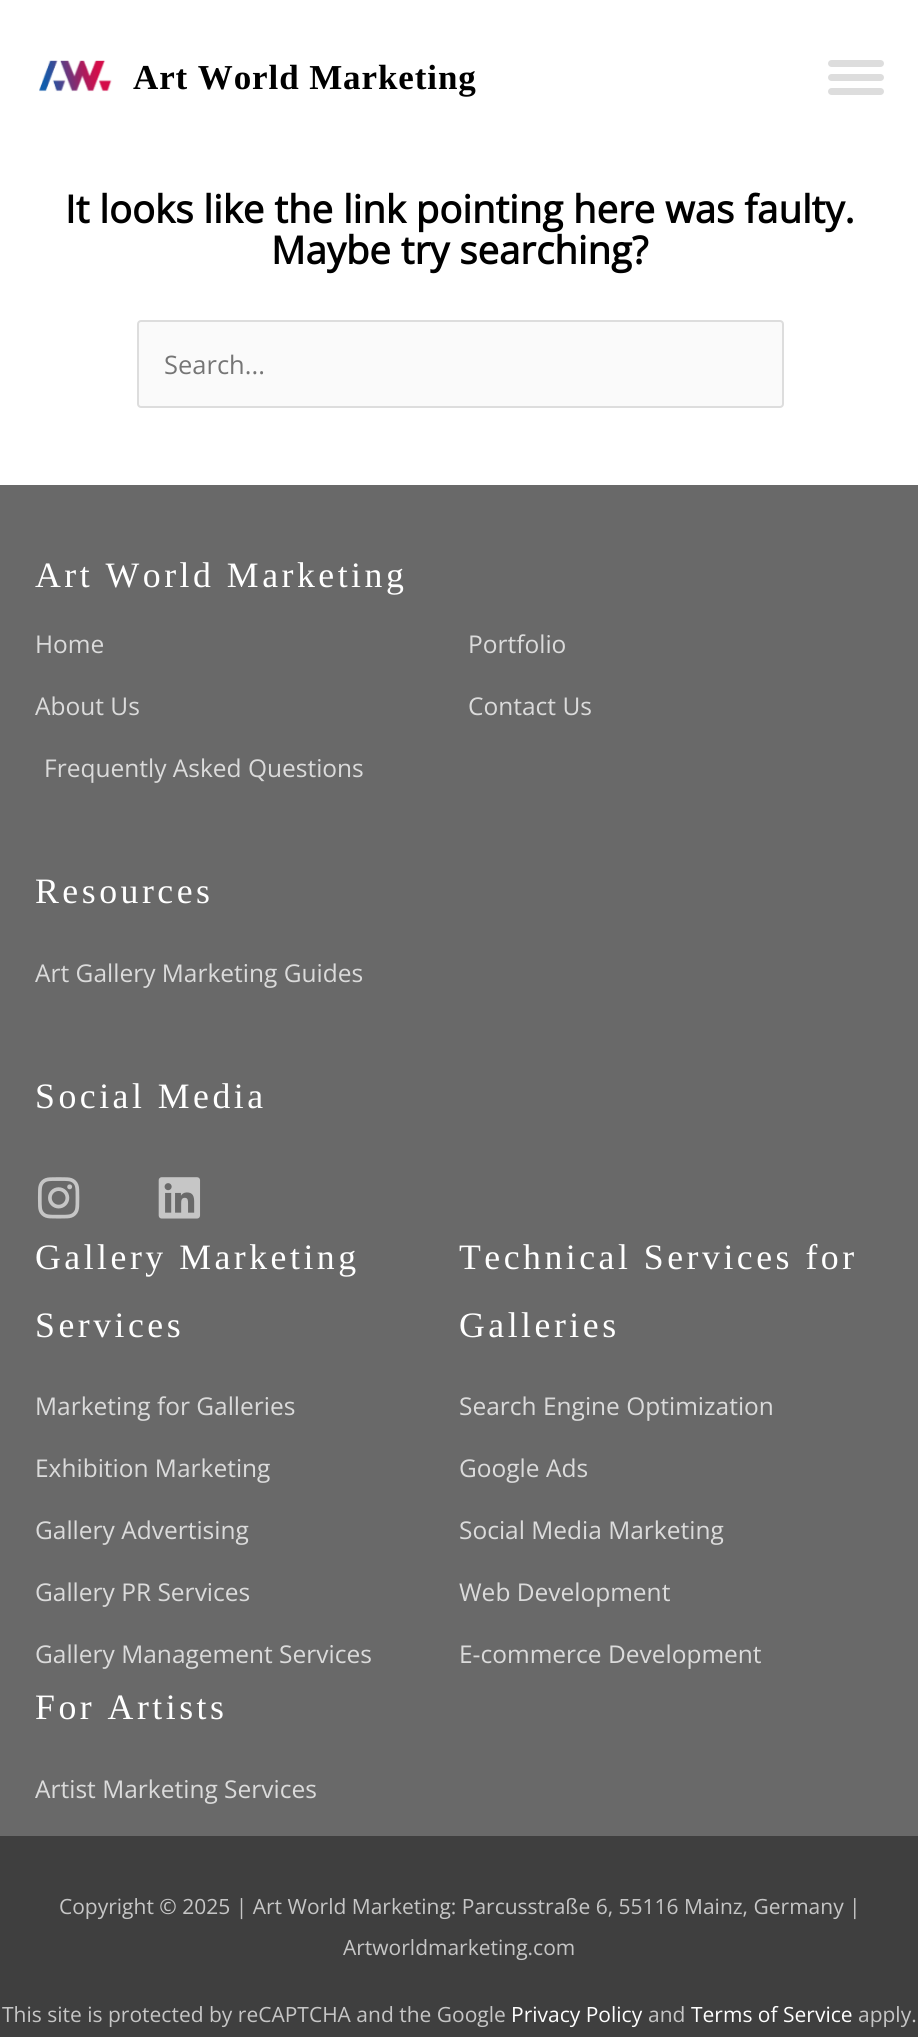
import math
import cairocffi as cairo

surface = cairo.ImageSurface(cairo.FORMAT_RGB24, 918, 2037)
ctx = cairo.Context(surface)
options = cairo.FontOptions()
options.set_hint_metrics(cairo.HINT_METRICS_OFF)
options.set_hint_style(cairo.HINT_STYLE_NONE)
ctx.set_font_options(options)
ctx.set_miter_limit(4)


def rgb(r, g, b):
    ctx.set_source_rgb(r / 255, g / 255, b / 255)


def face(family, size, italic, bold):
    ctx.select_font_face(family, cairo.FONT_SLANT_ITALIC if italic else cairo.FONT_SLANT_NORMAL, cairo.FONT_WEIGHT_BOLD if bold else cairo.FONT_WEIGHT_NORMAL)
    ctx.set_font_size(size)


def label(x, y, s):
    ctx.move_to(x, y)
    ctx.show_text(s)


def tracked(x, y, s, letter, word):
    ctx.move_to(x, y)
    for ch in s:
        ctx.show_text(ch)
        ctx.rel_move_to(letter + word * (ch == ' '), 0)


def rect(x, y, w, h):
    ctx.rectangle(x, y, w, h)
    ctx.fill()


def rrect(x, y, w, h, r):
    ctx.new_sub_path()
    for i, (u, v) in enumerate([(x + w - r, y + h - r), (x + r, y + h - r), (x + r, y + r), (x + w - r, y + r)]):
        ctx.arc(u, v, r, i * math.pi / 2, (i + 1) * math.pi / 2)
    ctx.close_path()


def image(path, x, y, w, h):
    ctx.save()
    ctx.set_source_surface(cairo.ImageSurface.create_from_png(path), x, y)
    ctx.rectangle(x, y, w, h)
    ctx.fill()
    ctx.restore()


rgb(255, 255, 255)
ctx.paint()
image('image0.png', 39, 60, 73, 32)
face('Liberation Serif', 35, 0, 1)
rgb(0, 0, 0)
tracked(133, 89, 'Art World Marketing', 0.9, 0)
rgb(221, 221, 221)
rrect(828, 60, 56, 7, 3.5)
ctx.fill()
rrect(828, 74, 56, 7, 3.5)
ctx.fill()
rrect(828, 88, 56, 7, 3.5)
ctx.fill()
face('Open Sans', 38.3, 0, 1)
rgb(0, 0, 0)
label(65, 223, 'It looks like the link pointing here was faulty.')
label(271, 264, 'Maybe try searching?')
rgb(250, 250, 250)
rrect(138, 321, 645, 86, 3)
ctx.fill_preserve()
rgb(221, 221, 221)
ctx.stroke()
face('Open Sans', 25.5, 0, 0)
rgb(117, 117, 117)
label(164, 374, 'Search...')
rgb(105, 105, 105)
rect(0, 485, 918, 1351)
face('Liberation Serif', 35.75, 0, 0)
rgb(255, 255, 255)
tracked(35, 587, 'Art World Marketing', 3.5, 0)
face('Open Sans', 24.5, 0, 0)
rgb(219, 219, 219)
label(35, 653, 'Home')
label(35, 715, 'About Us')
label(44, 777, 'Frequently Asked Questions')
label(468, 653, 'Portfolio')
label(468, 715, 'Contact Us')
face('Liberation Serif', 35.75, 0, 0)
rgb(255, 255, 255)
tracked(35, 903, 'Resources', 3.5, 0)
face('Open Sans', 24.5, 0, 0)
rgb(219, 219, 219)
label(35, 982, 'Art Gallery Marketing Guides')
face('Liberation Serif', 35.75, 0, 0)
rgb(255, 255, 255)
tracked(35, 1108, 'Social Media', 3.5, 0)
image('image1.png', 37, 1177, 43, 42)
image('image2.png', 158, 1177, 43, 42)
tracked(35, 1269, 'Gallery Marketing', 3.5, 0)
tracked(35, 1337, 'Services', 3.5, 0)
face('Open Sans', 24.5, 0, 0)
rgb(219, 219, 219)
label(35, 1415, 'Marketing for Galleries')
label(35, 1477, 'Exhibition Marketing')
label(35, 1539, 'Gallery Advertising')
label(35, 1601, 'Gallery PR Services')
label(35, 1663, 'Gallery Management Services')
face('Liberation Serif', 35.75, 0, 0)
rgb(255, 255, 255)
tracked(459, 1269, 'Technical Services for', 3.5, 0)
tracked(459, 1337, 'Galleries', 3.5, 0)
face('Open Sans', 24.5, 0, 0)
rgb(219, 219, 219)
label(459, 1415, 'Search Engine Optimization')
label(459, 1477, 'Google Ads')
label(459, 1539, 'Social Media Marketing')
label(459, 1601, 'Web Development')
label(459, 1663, 'E-commerce Development')
face('Liberation Serif', 35.75, 0, 0)
rgb(255, 255, 255)
tracked(35, 1719, 'For Artists', 3.5, 0)
face('Open Sans', 24.5, 0, 0)
rgb(219, 219, 219)
label(35, 1798, 'Artist Marketing Services')
rgb(63, 63, 63)
rect(0, 1836, 918, 201)
face('Open Sans', 21, 0, 0)
rgb(198, 198, 198)
label(59, 1914, 'Copyright © 2025 | Art World Marketing: Parcusstraße 6, 55116 Mainz, Germany |')
label(343, 1955, 'Artworldmarketing.com')
label(2, 2022, 'This site is protected by reCAPTCHA and the Google')
rgb(255, 255, 255)
label(511, 2022, 'Privacy Policy')
rgb(198, 198, 198)
label(648, 2022, 'and')
rgb(255, 255, 255)
label(691, 2022, 'Terms of Service')
rgb(198, 198, 198)
label(858, 2022, 'apply.')
surface.write_to_png('render.png')
